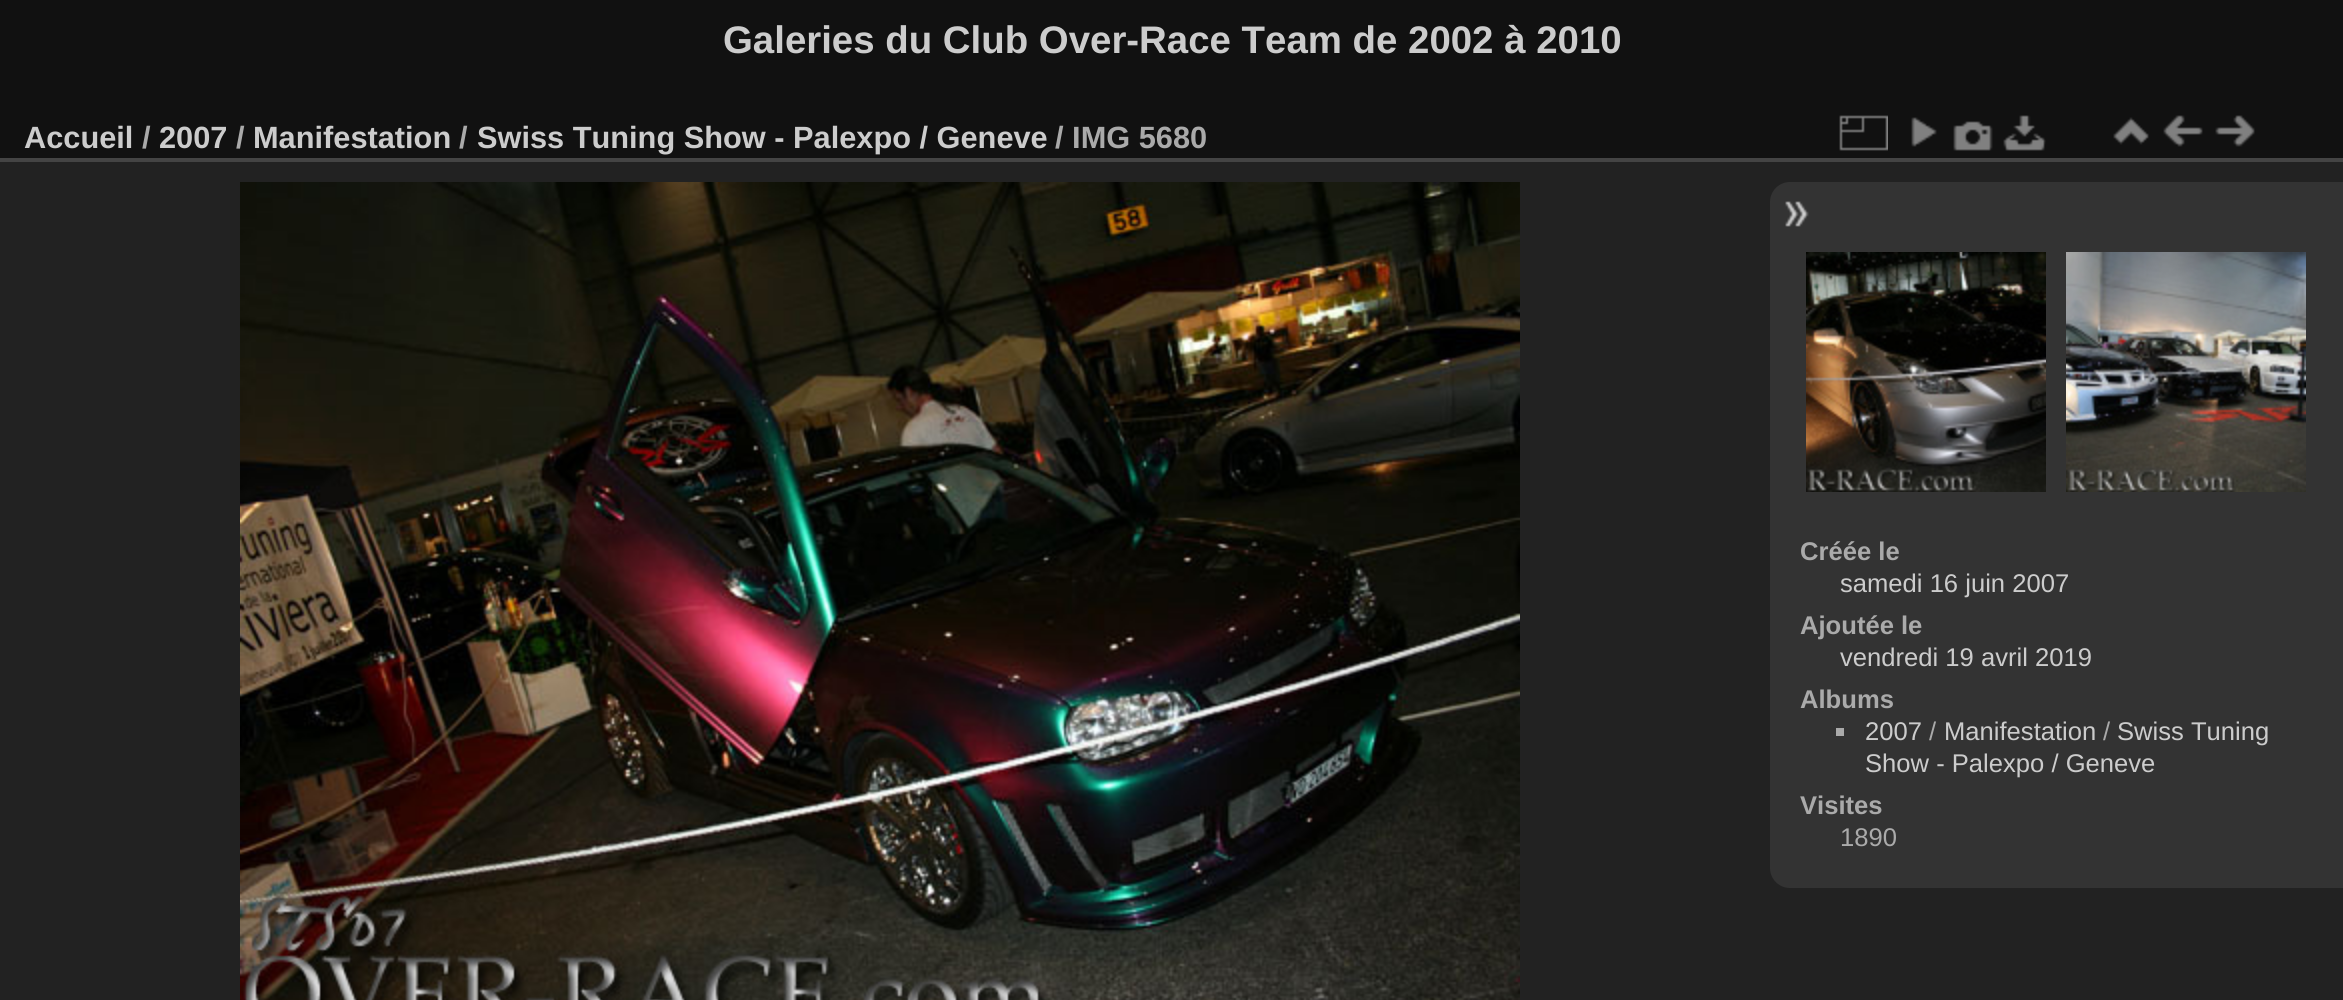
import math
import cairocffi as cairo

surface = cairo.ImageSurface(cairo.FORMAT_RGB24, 2343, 1000)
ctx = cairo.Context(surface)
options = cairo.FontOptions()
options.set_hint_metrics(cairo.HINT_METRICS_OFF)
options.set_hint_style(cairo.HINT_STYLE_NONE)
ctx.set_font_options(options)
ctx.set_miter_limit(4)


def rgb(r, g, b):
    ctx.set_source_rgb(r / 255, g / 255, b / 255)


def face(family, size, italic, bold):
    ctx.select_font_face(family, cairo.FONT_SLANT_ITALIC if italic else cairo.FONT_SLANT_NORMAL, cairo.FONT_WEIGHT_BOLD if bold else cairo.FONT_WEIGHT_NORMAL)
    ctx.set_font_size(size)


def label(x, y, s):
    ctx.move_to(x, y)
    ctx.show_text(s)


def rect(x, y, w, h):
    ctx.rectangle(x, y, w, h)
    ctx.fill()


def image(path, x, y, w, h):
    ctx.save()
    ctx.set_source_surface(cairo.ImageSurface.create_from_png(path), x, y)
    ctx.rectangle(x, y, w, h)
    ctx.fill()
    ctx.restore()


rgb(17, 17, 17)
ctx.paint()
face('Liberation Sans', 38.4, 0, 1)
rgb(204, 204, 204)
label(723, 53, 'Galeries du Club Over-Race Team de 2002 à 2010')
rgb(34, 34, 34)
rect(0, 162, 2343, 838)
rgb(68, 68, 68)
rect(0, 158, 2343, 4)
face('Liberation Sans', 30.75, 0, 1)
rgb(204, 204, 204)
label(24, 148, 'Accueil')
rgb(170, 170, 170)
label(142, 148, '/')
rgb(204, 204, 204)
label(159, 148, '2007')
rgb(170, 170, 170)
label(236, 148, '/')
rgb(204, 204, 204)
label(253, 148, 'Manifestation')
rgb(170, 170, 170)
label(459, 148, '/')
rgb(204, 204, 204)
label(477, 148, 'Swiss Tuning Show - Palexpo / Geneve')
rgb(170, 170, 170)
label(1055, 148, '/ IMG 5680')
image('image0.png', 1839, 115, 49, 36)
image('image1.png', 1911, 117, 26, 30)
image('image2.png', 1953, 121, 40, 30)
image('image3.png', 2003, 115, 43, 36)
image('image4.png', 2113, 117, 36, 28)
image('image5.png', 2163, 115, 40, 32)
image('image6.png', 2215, 115, 40, 32)
image('image7.png', 240, 182, 1280, 818)
rgb(51, 51, 51)
ctx.new_path()
ctx.move_to(1790, 182)
ctx.line_to(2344, 182)
ctx.line_to(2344, 888)
ctx.line_to(1790, 888)
ctx.curve_to(1779, 888, 1770, 879, 1770, 868)
ctx.line_to(1770, 202)
ctx.curve_to(1770, 191, 1779, 182, 1790, 182)
ctx.close_path()
ctx.fill()
image('image8.png', 1785, 201, 24, 26)
image('image9.png', 1806, 252, 240, 240)
image('image10.png', 2066, 252, 240, 240)
face('Liberation Sans', 25.6, 0, 1)
rgb(170, 170, 170)
label(1800, 560, 'Créée le')
face('Liberation Sans', 25.6, 0, 0)
rgb(204, 204, 204)
label(1840, 592, 'samedi 16 juin 2007')
face('Liberation Sans', 25.6, 0, 1)
rgb(170, 170, 170)
label(1800, 634, 'Ajoutée le')
face('Liberation Sans', 25.6, 0, 0)
rgb(204, 204, 204)
label(1840, 666, 'vendredi 19 avril 2019')
face('Liberation Sans', 25.6, 0, 1)
rgb(170, 170, 170)
label(1800, 708, 'Albums')
rect(1836, 728, 8, 8)
face('Liberation Sans', 25.6, 0, 0)
rgb(204, 204, 204)
label(1865, 740, '2007')
rgb(170, 170, 170)
label(1929, 740, '/')
rgb(204, 204, 204)
label(1944, 740, 'Manifestation')
rgb(170, 170, 170)
label(2103, 740, '/')
rgb(204, 204, 204)
label(2117, 740, 'Swiss Tuning')
label(1865, 772, 'Show - Palexpo / Geneve')
face('Liberation Sans', 25.6, 0, 1)
rgb(170, 170, 170)
label(1800, 814, 'Visites')
face('Liberation Sans', 25.6, 0, 0)
label(1840, 846, '1890')
surface.write_to_png('render.png')
